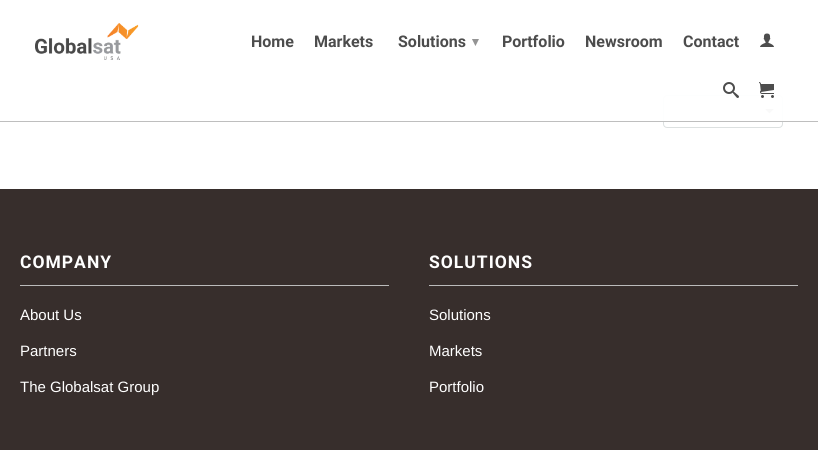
import math
import cairocffi as cairo

surface = cairo.ImageSurface(cairo.FORMAT_RGB24, 818, 450)
ctx = cairo.Context(surface)
options = cairo.FontOptions()
options.set_hint_metrics(cairo.HINT_METRICS_OFF)
options.set_hint_style(cairo.HINT_STYLE_NONE)
ctx.set_font_options(options)
ctx.set_miter_limit(4)


def rgb(r, g, b):
    ctx.set_source_rgb(r / 255, g / 255, b / 255)


def face(family, size, italic, bold):
    ctx.select_font_face(family, cairo.FONT_SLANT_ITALIC if italic else cairo.FONT_SLANT_NORMAL, cairo.FONT_WEIGHT_BOLD if bold else cairo.FONT_WEIGHT_NORMAL)
    ctx.set_font_size(size)


def label(x, y, s):
    ctx.move_to(x, y)
    ctx.show_text(s)


def tracked(x, y, s, letter, word):
    ctx.move_to(x, y)
    for ch in s:
        ctx.show_text(ch)
        ctx.rel_move_to(letter + word * (ch == ' '), 0)


def rect(x, y, w, h):
    ctx.rectangle(x, y, w, h)
    ctx.fill()


def rrect(x, y, w, h, r):
    ctx.new_sub_path()
    for i, (u, v) in enumerate([(x + w - r, y + h - r), (x + r, y + h - r), (x + r, y + r), (x + w - r, y + r)]):
        ctx.arc(u, v, r, i * math.pi / 2, (i + 1) * math.pi / 2)
    ctx.close_path()


def image(path, x, y, w, h):
    ctx.save()
    ctx.set_source_surface(cairo.ImageSurface.create_from_png(path), x, y)
    ctx.rectangle(x, y, w, h)
    ctx.fill()
    ctx.restore()


rgb(255, 255, 255)
ctx.paint()
image('image4.png', 765, 109, 9, 5)
rrect(663.5, 95.5, 119, 32, 3.5)
rgb(220, 224, 224)
ctx.set_line_width(1)
ctx.stroke()
ctx.set_source_rgba(1, 1, 1, 0.95)
rect(663, 95, 120, 26)
rgb(190, 190, 190)
rect(0, 121, 818, 1)
image('image0.png', 35, 23, 104, 37)
face('Roboto', 16, 0, 1)
rgb(76, 76, 76)
label(251, 47, 'Home')
label(314, 47, 'Markets')
label(398, 47, 'Solutions')
face('DejaVu Sans', 13, 0, 1)
rgb(148, 148, 148)
label(472, 46, '▾')
face('Roboto', 16, 0, 1)
rgb(76, 76, 76)
label(502, 47, 'Portfolio')
label(585, 47, 'Newsroom')
label(683, 47, 'Contact')
image('image1.png', 760, 33, 14, 14)
image('image2.png', 723, 82, 16, 16)
image('image3.png', 759, 82, 15, 16)
rgb(55, 46, 44)
rect(0, 189, 818, 261)
rgb(187, 187, 187)
rect(20, 285, 369, 1)
face('Roboto', 17.5, 0, 1)
rgb(255, 255, 255)
tracked(20, 268, 'COMPANY', 1, 0)
face('Liberation Sans', 15, 0, 0)
label(20, 320, 'About Us')
label(20, 356, 'Partners')
label(20, 392, 'The Globalsat Group')
rgb(187, 187, 187)
rect(429, 285, 369, 1)
face('Roboto', 17.5, 0, 1)
rgb(255, 255, 255)
tracked(429, 268, 'SOLUTIONS', 1, 0)
face('Liberation Sans', 15, 0, 0)
label(429, 320, 'Solutions')
label(429, 356, 'Markets')
label(429, 392, 'Portfolio')
surface.write_to_png('render.png')
